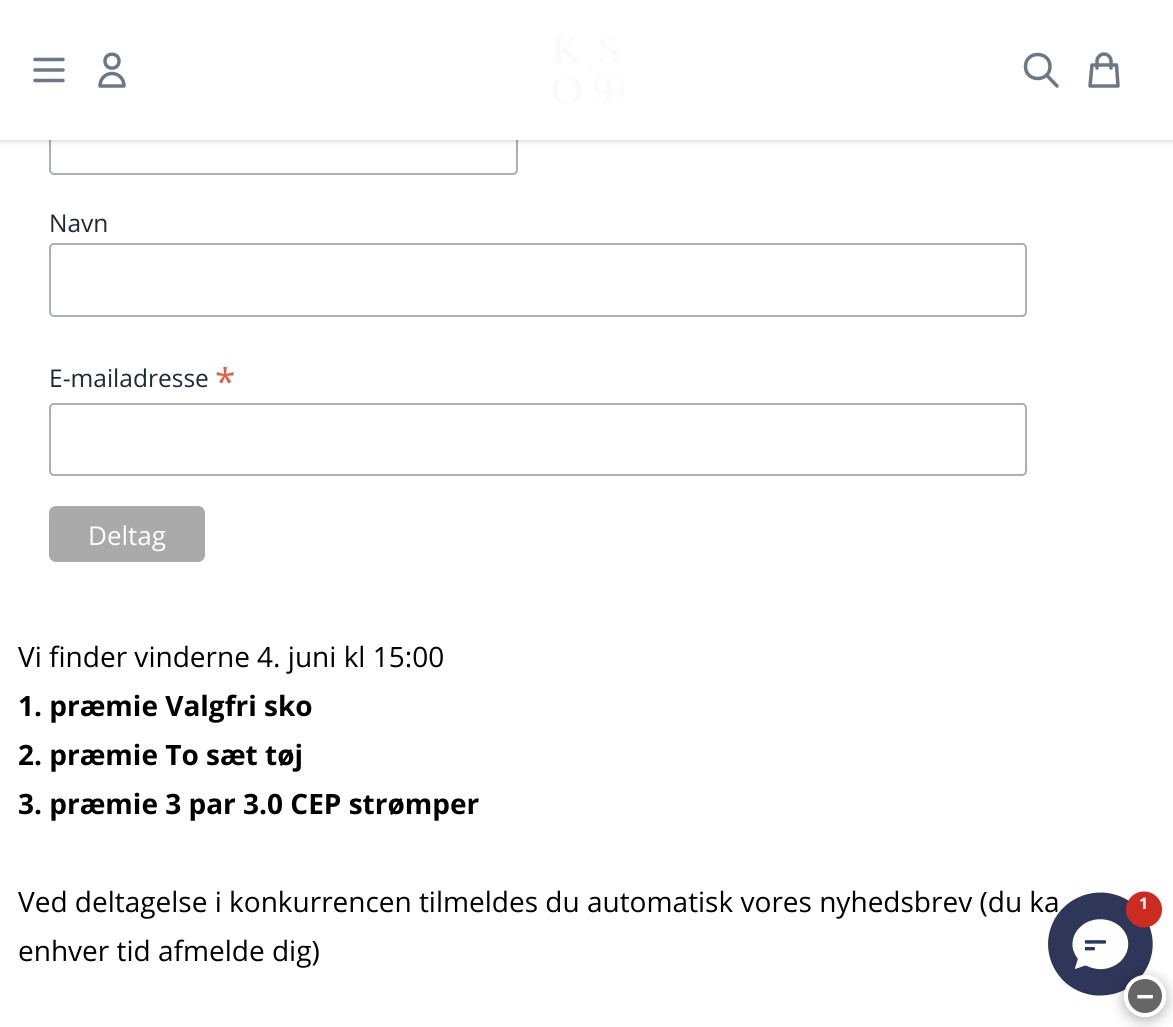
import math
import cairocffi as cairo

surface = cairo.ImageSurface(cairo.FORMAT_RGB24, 1173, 1027)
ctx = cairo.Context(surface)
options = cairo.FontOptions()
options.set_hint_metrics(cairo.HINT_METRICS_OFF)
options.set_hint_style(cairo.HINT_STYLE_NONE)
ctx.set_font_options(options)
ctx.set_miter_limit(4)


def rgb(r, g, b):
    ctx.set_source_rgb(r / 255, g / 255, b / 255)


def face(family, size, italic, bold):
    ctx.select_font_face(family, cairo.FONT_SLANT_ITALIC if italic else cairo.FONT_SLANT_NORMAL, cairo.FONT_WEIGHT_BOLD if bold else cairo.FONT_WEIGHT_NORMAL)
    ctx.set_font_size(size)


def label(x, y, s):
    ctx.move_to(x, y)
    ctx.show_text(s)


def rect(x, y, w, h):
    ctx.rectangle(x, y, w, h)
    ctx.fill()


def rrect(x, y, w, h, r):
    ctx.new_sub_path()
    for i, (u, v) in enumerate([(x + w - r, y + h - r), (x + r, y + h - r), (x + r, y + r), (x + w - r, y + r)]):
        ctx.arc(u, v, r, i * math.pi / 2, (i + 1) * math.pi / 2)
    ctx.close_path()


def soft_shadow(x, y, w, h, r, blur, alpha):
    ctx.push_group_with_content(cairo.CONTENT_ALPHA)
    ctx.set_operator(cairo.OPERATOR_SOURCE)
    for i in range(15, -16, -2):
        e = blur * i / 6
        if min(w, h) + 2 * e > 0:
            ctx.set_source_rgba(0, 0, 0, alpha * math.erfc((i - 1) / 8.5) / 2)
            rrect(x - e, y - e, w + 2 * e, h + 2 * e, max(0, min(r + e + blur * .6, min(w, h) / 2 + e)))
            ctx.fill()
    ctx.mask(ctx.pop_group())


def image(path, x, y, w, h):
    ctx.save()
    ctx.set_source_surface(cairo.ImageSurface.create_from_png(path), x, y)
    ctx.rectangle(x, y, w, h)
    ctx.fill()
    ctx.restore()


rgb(255, 255, 255)
ctx.paint()
rrect(50, 103, 467, 71, 4)
rgb(171, 176, 178)
ctx.stroke()
rgb(0, 0, 0)
soft_shadow(2, 4, 1171, 136, 0, 2, 0.1)
soft_shadow(0, 2, 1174, 140, 0, 2.5, 0.1)
rgb(255, 255, 255)
rect(0, 0, 1173, 140)
ctx.new_path()
ctx.move_to(35, 59.5)
ctx.line_to(63, 59.5)
ctx.move_to(35, 70)
ctx.line_to(63, 70)
ctx.move_to(35, 80.5)
ctx.line_to(63, 80.5)
rgb(108, 120, 132)
ctx.set_line_width(3.5)
ctx.set_line_cap(cairo.LINE_CAP_ROUND)
ctx.set_line_join(cairo.LINE_JOIN_ROUND)
ctx.stroke()
ctx.new_path()
ctx.move_to(119, 61)
ctx.curve_to(119, 70.5, 105, 70.5, 105, 61)
ctx.curve_to(105, 52, 119, 52, 119, 61)
ctx.close_path()
ctx.move_to(112, 73.5)
ctx.curve_to(105, 73.5, 100, 79, 100, 86)
ctx.line_to(124, 86)
ctx.curve_to(124, 79, 119, 73.5, 112, 73.5)
ctx.close_path()
ctx.stroke()
image('image0.png', 553, 37, 71, 67)
ctx.new_path()
ctx.move_to(1057, 86)
ctx.line_to(1046.5, 75)
ctx.move_to(1050, 66.5)
ctx.curve_to(1050, 82.5, 1025.5, 82.5, 1025.5, 66.5)
ctx.curve_to(1025.5, 50.5, 1050, 50.5, 1050, 66.5)
ctx.close_path()
ctx.stroke()
ctx.new_path()
ctx.move_to(1111, 68)
ctx.line_to(1111, 61)
ctx.curve_to(1111, 57.5, 1108, 54, 1104, 54)
ctx.curve_to(1100.5, 54, 1097, 57.5, 1097, 61)
ctx.line_to(1097, 68)
ctx.move_to(1092, 65)
ctx.line_to(1116.5, 65)
ctx.line_to(1118, 86)
ctx.line_to(1090, 86)
ctx.close_path()
ctx.stroke()
face('Open Sans', 24.5, 0, 0)
rgb(31, 41, 55)
label(49, 232, 'Navn')
rrect(50, 244, 976, 72, 4)
rgb(171, 176, 178)
ctx.set_line_width(2)
ctx.set_line_cap(cairo.LINE_CAP_BUTT)
ctx.set_line_join(cairo.LINE_JOIN_MITER)
ctx.stroke()
rgb(31, 41, 55)
label(49, 387, 'E-mailadresse')
face('Open Sans', 37, 0, 0)
rgb(232, 92, 65)
label(215, 395, '*')
rrect(50, 404, 976, 71, 4)
rgb(171, 176, 178)
ctx.stroke()
rgb(170, 170, 170)
rrect(49, 506, 156, 56, 7)
ctx.fill()
face('Open Sans', 26, 0, 0)
rgb(255, 255, 255)
label(88, 545, 'Deltag')
face('Open Sans', 28, 0, 0)
rgb(0, 0, 0)
label(18, 667, 'Vi finder vinderne 4. juni kl 15:00')
face('Open Sans', 28, 0, 1)
label(18, 716, '1. præmie Valgfri sko')
label(18, 765, '2. præmie To sæt tøj')
label(18, 814, '3. præmie 3 par 3.0 CEP strømper')
face('Open Sans', 28, 0, 0)
label(18, 912, 'Ved deltagelse i konkurrencen tilmeldes du automatisk vores nyhedsbrev (du ka')
label(18, 961, 'enhver tid afmelde dig)')
image('image1.png', 1048, 891, 114, 105)
face('Open Sans', 16, 0, 1)
rgb(255, 255, 255)
label(1139, 909, '1')
ctx.save()
ctx.set_fill_rule(cairo.FILL_RULE_EVEN_ODD)
ctx.new_path()
ctx.move_to(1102, 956)
ctx.line_to(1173, 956)
ctx.line_to(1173, 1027)
ctx.line_to(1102, 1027)
ctx.close_path()
ctx.move_to(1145, 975)
ctx.curve_to(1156.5, 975, 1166, 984.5, 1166, 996)
ctx.curve_to(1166, 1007.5, 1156.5, 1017, 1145, 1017)
ctx.curve_to(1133.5, 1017, 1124, 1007.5, 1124, 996)
ctx.curve_to(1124, 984.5, 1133.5, 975, 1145, 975)
ctx.close_path()
ctx.clip()
rgb(0, 0, 0)
soft_shadow(1124, 978, 42, 42, 21, 7, 0.3)
ctx.restore()
ctx.set_source_rgba(0, 0, 0, 0.6)
ctx.arc(1145, 996, 19, 0, 2 * math.pi)
ctx.fill_preserve()
rgb(255, 255, 255)
ctx.set_line_width(4)
ctx.stroke()
face('Open Sans', 32, 0, 1)
label(1136, 1008, '−')
surface.write_to_png('render.png')
